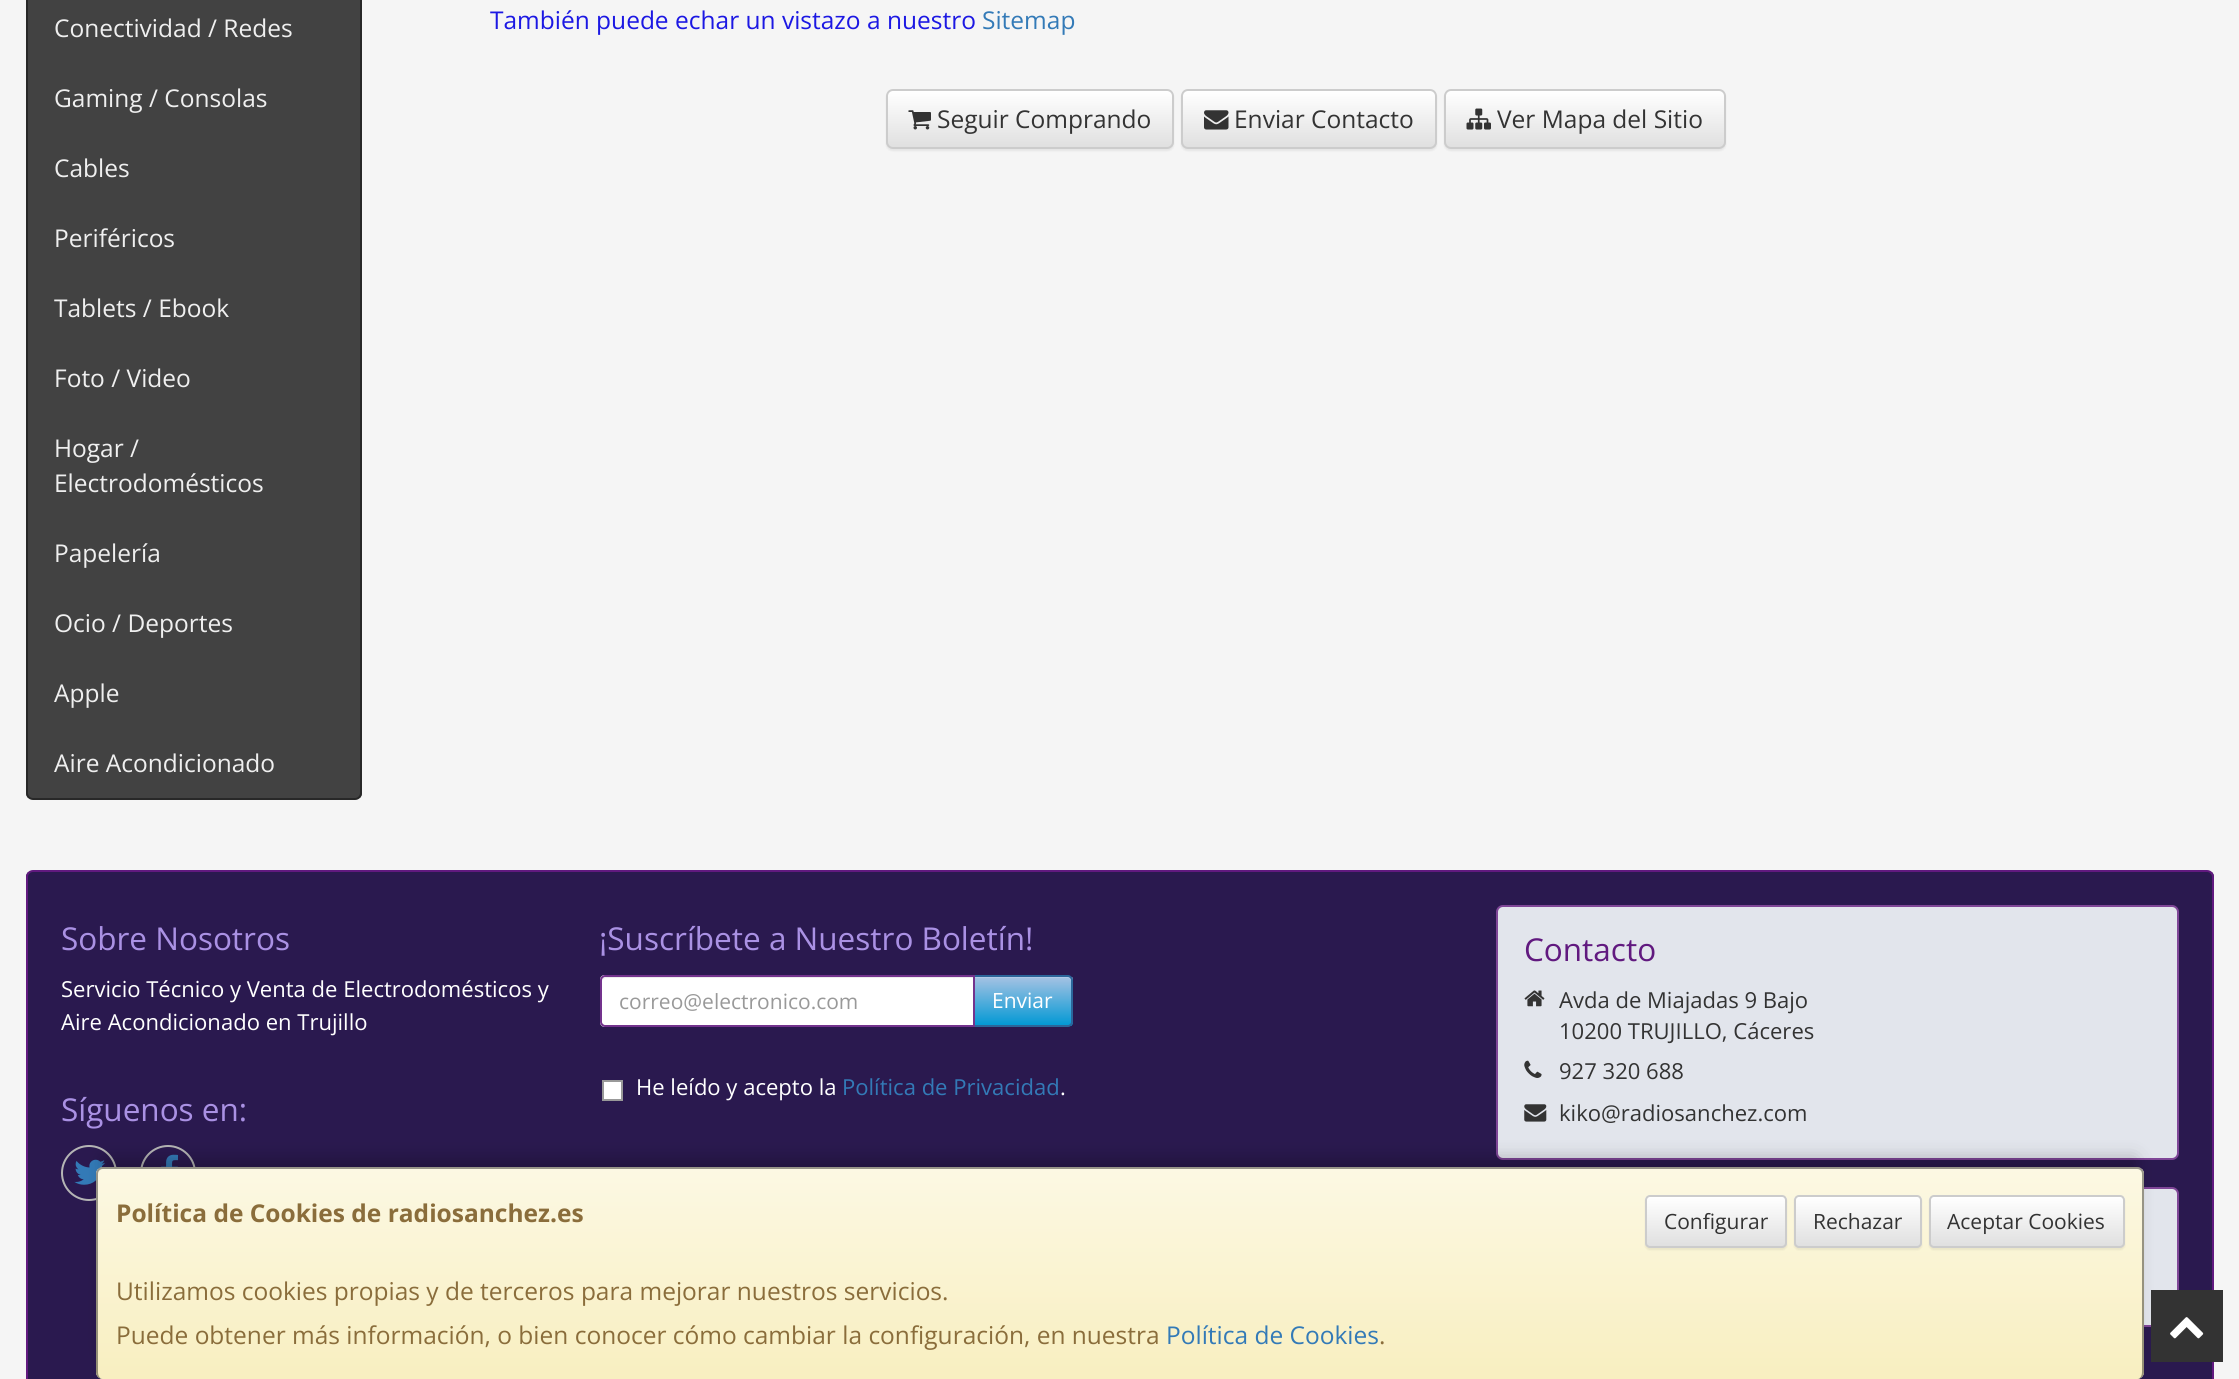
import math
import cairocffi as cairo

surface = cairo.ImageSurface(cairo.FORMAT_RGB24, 2239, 1379)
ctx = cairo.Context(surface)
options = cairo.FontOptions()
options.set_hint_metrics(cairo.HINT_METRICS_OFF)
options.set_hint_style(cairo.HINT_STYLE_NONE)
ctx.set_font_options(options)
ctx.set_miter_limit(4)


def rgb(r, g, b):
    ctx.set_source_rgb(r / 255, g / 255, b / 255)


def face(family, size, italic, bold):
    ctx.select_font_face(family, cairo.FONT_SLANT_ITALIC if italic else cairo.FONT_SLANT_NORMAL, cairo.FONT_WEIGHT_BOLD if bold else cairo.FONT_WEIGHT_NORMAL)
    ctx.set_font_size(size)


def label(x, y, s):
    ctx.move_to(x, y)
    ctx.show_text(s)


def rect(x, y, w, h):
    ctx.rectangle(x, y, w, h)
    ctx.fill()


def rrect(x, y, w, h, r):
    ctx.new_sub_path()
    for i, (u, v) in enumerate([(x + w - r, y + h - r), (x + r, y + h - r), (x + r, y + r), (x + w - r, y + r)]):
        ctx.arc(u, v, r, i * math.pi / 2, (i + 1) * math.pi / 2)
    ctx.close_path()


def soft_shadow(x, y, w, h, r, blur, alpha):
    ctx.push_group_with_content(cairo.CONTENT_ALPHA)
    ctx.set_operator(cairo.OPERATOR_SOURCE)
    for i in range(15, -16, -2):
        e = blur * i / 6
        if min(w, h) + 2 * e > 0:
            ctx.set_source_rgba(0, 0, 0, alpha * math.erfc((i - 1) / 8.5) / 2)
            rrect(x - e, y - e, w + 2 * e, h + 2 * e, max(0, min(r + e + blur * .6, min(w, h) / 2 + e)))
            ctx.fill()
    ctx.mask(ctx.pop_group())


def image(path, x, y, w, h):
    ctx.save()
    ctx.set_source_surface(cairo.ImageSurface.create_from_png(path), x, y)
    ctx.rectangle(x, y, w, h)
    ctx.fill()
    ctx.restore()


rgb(245, 245, 245)
ctx.paint()
ctx.save()
rrect(26, -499, 336, 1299, 7)
ctx.clip()
rgb(66, 66, 66)
rect(26, 0, 336, 798)
ctx.restore()
rrect(27, -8, 334, 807, 6)
rgb(40, 40, 40)
ctx.stroke()
face('Open Sans', 24.5, 0, 0)
rgb(239, 239, 239)
label(54, 37, 'Conectividad / Redes')
label(54, 107, 'Gaming / Consolas')
label(54, 177, 'Cables')
label(54, 247, 'Periféricos')
label(54, 317, 'Tablets / Ebook')
label(54, 387, 'Foto / Video')
label(54, 457, 'Hogar /')
label(54, 492, 'Electrodomésticos')
label(54, 562, 'Papelería')
label(54, 632, 'Ocio / Deportes')
label(54, 702, 'Apple')
label(54, 772, 'Aire Acondicionado')
rgb(28, 24, 227)
label(490, 29, 'También puede echar un vistazo a nuestro')
rgb(51, 122, 183)
label(982, 29, 'Sitemap')
rgb(0, 0, 0)
soft_shadow(886, 91, 288, 60, 7, 1, 0.07)
ctx.save()
rrect(886, 89, 288, 60, 7)
ctx.clip()
gradient = cairo.LinearGradient(1030, 91, 1030, 147)
gradient.add_color_stop_rgba(0, 1, 1, 1, 1)
gradient.add_color_stop_rgba(1, 0.878, 0.878, 0.878, 1)
ctx.set_source(gradient)
rect(886, 91, 288, 56)
ctx.restore()
ctx.set_source_rgba(1, 1, 1, 0.15)
ctx.new_path()
ctx.move_to(892, 93)
ctx.line_to(1167, 93)
ctx.curve_to(1170, 93, 1172, 95, 1172, 98)
ctx.line_to(1172, 145)
ctx.curve_to(1173, 144, 1173, 143, 1173, 142)
ctx.line_to(1173, 96)
ctx.curve_to(1173, 93, 1171, 91, 1168, 91)
ctx.line_to(892, 91)
ctx.curve_to(889, 91, 887, 93, 887, 96)
ctx.line_to(887, 98)
ctx.curve_to(887, 95, 890, 93, 892, 93)
ctx.close_path()
ctx.fill()
rrect(887, 90, 286, 58, 6)
rgb(204, 204, 204)
ctx.stroke()
image('image0.png', 908, 110, 23, 20)
rgb(51, 51, 51)
label(937, 128, 'Seguir Comprando')
rgb(0, 0, 0)
soft_shadow(1181, 91, 256, 60, 7, 1, 0.07)
ctx.save()
rrect(1181, 89, 256, 60, 7)
ctx.clip()
gradient = cairo.LinearGradient(1309, 91, 1309, 147)
gradient.add_color_stop_rgba(0, 1, 1, 1, 1)
gradient.add_color_stop_rgba(1, 0.878, 0.878, 0.878, 1)
ctx.set_source(gradient)
rect(1181, 91, 256, 56)
ctx.restore()
rrect(1182, 90, 254, 58, 6)
rgb(204, 204, 204)
ctx.stroke()
image('image1.png', 1204, 110, 25, 20)
rgb(51, 51, 51)
label(1234, 128, 'Enviar Contacto')
rgb(0, 0, 0)
soft_shadow(1444, 91, 282, 60, 7, 1, 0.07)
ctx.save()
rrect(1444, 89, 282, 60, 7)
ctx.clip()
gradient = cairo.LinearGradient(1585, 91, 1585, 147)
gradient.add_color_stop_rgba(0, 1, 1, 1, 1)
gradient.add_color_stop_rgba(1, 0.878, 0.878, 0.878, 1)
ctx.set_source(gradient)
rect(1444, 91, 282, 56)
ctx.restore()
rrect(1445, 90, 280, 58, 6)
rgb(204, 204, 204)
ctx.stroke()
image('image2.png', 1466, 108, 25, 22)
rgb(51, 51, 51)
label(1497, 128, 'Ver Mapa del Sitio')
ctx.save()
rrect(26, 870, 2188, 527, 7)
ctx.clip()
rgb(42, 25, 79)
rect(26, 872, 2188, 507)
ctx.restore()
rrect(27, 871, 2186, 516, 6)
rgb(97, 25, 127)
ctx.stroke()
face('Open Sans', 31.5, 0, 0)
rgb(170, 145, 228)
label(61, 950, 'Sobre Nosotros')
face('Open Sans', 22.05, 0, 0)
rgb(255, 255, 255)
label(61, 997, 'Servicio Técnico y Venta de Electrodomésticos y')
label(61, 1030, 'Aire Acondicionado en Trujillo')
face('Open Sans', 31.5, 0, 0)
rgb(170, 145, 228)
label(61, 1121, 'Síguenos en:')
ctx.new_path()
ctx.arc(89, 1173, 27, 0, 2 * math.pi)
rgb(181, 181, 181)
ctx.stroke()
image('image3.png', 74, 1159, 31, 26)
ctx.arc(168, 1173, 27, 0, 2 * math.pi)
ctx.stroke()
image('image4.png', 161, 1154, 17, 13)
rgb(170, 145, 228)
label(599, 950, '¡Suscríbete a Nuestro Boletín!')
ctx.save()
ctx.new_path()
ctx.move_to(973, 975)
ctx.line_to(1068, 975)
ctx.curve_to(1071, 975, 1073, 977, 1073, 980)
ctx.line_to(1073, 1022)
ctx.curve_to(1073, 1025, 1071, 1027, 1068, 1027)
ctx.line_to(973, 1027)
ctx.close_path()
ctx.clip()
gradient = cairo.LinearGradient(1023, 977, 1023, 1026)
gradient.add_color_stop_rgba(0, 0.647, 0.761, 0.89, 1)
gradient.add_color_stop_rgba(1, 0, 0.596, 0.831, 1)
ctx.set_source(gradient)
rect(975, 977, 98, 49)
ctx.restore()
ctx.set_source_rgba(1, 1, 1, 0.15)
ctx.new_path()
ctx.move_to(975, 978)
ctx.line_to(1068, 978)
ctx.curve_to(1069, 978, 1071, 980, 1071, 982)
ctx.line_to(1071, 981)
ctx.curve_to(1071, 979, 1069, 977, 1067, 977)
ctx.line_to(975, 977)
ctx.close_path()
ctx.fill()
ctx.new_path()
ctx.move_to(974, 976)
ctx.line_to(1068, 976)
ctx.curve_to(1070, 976, 1072, 978, 1072, 980)
ctx.line_to(1072, 1022)
ctx.curve_to(1072, 1024, 1070, 1026, 1068, 1026)
ctx.line_to(974, 1026)
ctx.close_path()
rgb(43, 102, 154)
ctx.stroke()
rgb(255, 255, 255)
ctx.new_path()
ctx.move_to(605, 975)
ctx.line_to(975, 975)
ctx.line_to(975, 1027)
ctx.line_to(605, 1027)
ctx.curve_to(602, 1027, 600, 1025, 600, 1022)
ctx.line_to(600, 980)
ctx.curve_to(600, 977, 602, 975, 605, 975)
ctx.close_path()
ctx.fill()
rgb(236, 236, 236)
ctx.new_path()
ctx.move_to(606, 978)
ctx.line_to(973, 978)
ctx.line_to(973, 977)
ctx.line_to(606, 977)
ctx.curve_to(603, 977, 602, 979, 602, 982)
ctx.curve_to(602, 980, 604, 978, 606, 978)
ctx.close_path()
ctx.fill()
ctx.new_path()
ctx.move_to(605, 976)
ctx.line_to(974, 976)
ctx.line_to(974, 1026)
ctx.line_to(605, 1026)
ctx.curve_to(603, 1026, 601, 1024, 601, 1022)
ctx.line_to(601, 980)
ctx.curve_to(601, 978, 603, 976, 605, 976)
ctx.close_path()
rgb(115, 51, 141)
ctx.stroke()
ctx.save()
ctx.rectangle(620, 985, 336, 30)
ctx.clip()
face('Open Sans', 21, 0, 0)
rgb(153, 153, 153)
label(619, 1009, 'correo@electronico.com')
ctx.restore()
face('Open Sans', 21, 0, 0)
rgb(255, 255, 255)
label(992, 1008, 'Enviar')
ctx.rectangle(603, 1081, 19, 19)
ctx.fill_preserve()
rgb(153, 153, 153)
ctx.stroke()
face('Open Sans', 22.05, 0, 0)
rgb(255, 255, 255)
label(636, 1095, 'He leído y acepto la')
rgb(51, 122, 183)
label(842, 1095, 'Política de Privacidad')
rgb(255, 255, 255)
label(1060, 1095, '.')
rgb(226, 229, 236)
rrect(1497, 906, 681, 253, 6)
ctx.fill_preserve()
rgb(127, 70, 151)
ctx.stroke()
face('Open Sans', 31.5, 0, 0)
rgb(97, 25, 127)
label(1524, 961, 'Contacto')
image('image5.png', 1524, 990, 21, 17)
face('Open Sans', 22.05, 0, 0)
rgb(51, 51, 51)
label(1559, 1008, 'Avda de Miajadas 9 Bajo')
label(1559, 1039, '10200 TRUJILLO, Cáceres')
image('image6.png', 1524, 1060, 18, 18)
label(1559, 1079, '927 320 688')
image('image7.png', 1524, 1104, 23, 18)
label(1559, 1121, 'kiko@radiosanchez.com')
rgb(226, 229, 236)
rrect(1497, 1188, 681, 138, 6)
ctx.fill_preserve()
rgb(127, 70, 151)
ctx.stroke()
rgb(51, 51, 51)
rect(2151, 1290, 72, 72)
rgb(0, 0, 0)
soft_shadow(105, 1159, 2030, 194, 0, 9, 0.25)
rgb(252, 248, 227)
rrect(96, 1167, 2048, 212, 7)
ctx.fill()
ctx.save()
rrect(96, 1167, 2048, 212, 7)
ctx.clip()
gradient = cairo.LinearGradient(1120, 1169, 1120, 1379)
gradient.add_color_stop_rgba(0, 0.988, 0.973, 0.89, 1)
gradient.add_color_stop_rgba(1, 0.973, 0.937, 0.753, 1)
ctx.set_source(gradient)
ctx.new_path()
ctx.move_to(96, 1169)
ctx.line_to(2144, 1169)
ctx.line_to(2144, 1372)
ctx.curve_to(2144, 1376, 2141, 1379, 2137, 1379)
ctx.line_to(103, 1379)
ctx.curve_to(99, 1379, 96, 1376, 96, 1372)
ctx.close_path()
ctx.fill()
ctx.restore()
ctx.set_source_rgba(0, 0, 0, 0.4)
ctx.set_fill_rule(cairo.FILL_RULE_EVEN_ODD)
ctx.new_path()
ctx.move_to(103, 1167)
ctx.line_to(2137, 1167)
ctx.curve_to(2141, 1167, 2144, 1170, 2144, 1174)
ctx.line_to(2144, 1372)
ctx.curve_to(2144, 1376, 2141, 1379, 2137, 1379)
ctx.line_to(103, 1379)
ctx.curve_to(99, 1379, 96, 1376, 96, 1372)
ctx.line_to(96, 1174)
ctx.curve_to(96, 1170, 99, 1167, 103, 1167)
ctx.close_path()
ctx.move_to(103, 1169)
ctx.line_to(2137, 1169)
ctx.curve_to(2140, 1169, 2142, 1171, 2142, 1174)
ctx.line_to(2142, 1372)
ctx.curve_to(2142, 1376, 2140, 1379, 2137, 1379)
ctx.line_to(103, 1379)
ctx.curve_to(100, 1379, 98, 1376, 98, 1372)
ctx.line_to(98, 1174)
ctx.curve_to(98, 1171, 100, 1169, 103, 1169)
ctx.close_path()
ctx.fill()
face('Open Sans', 24.5, 0, 1)
rgb(138, 109, 59)
label(116, 1222, 'Política de Cookies de radiosanchez.es')
rgb(0, 0, 0)
soft_shadow(1645, 1197, 142, 53, 5, 1, 0.07)
ctx.save()
ctx.set_fill_rule(cairo.FILL_RULE_WINDING)
rrect(1645, 1195, 142, 53, 5)
ctx.clip()
gradient = cairo.LinearGradient(1716, 1197, 1716, 1246)
gradient.add_color_stop_rgba(0, 1, 1, 1, 1)
gradient.add_color_stop_rgba(1, 0.878, 0.878, 0.878, 1)
ctx.set_source(gradient)
rect(1645, 1197, 142, 49)
ctx.restore()
rrect(1646, 1196, 140, 51, 4)
rgb(204, 204, 204)
ctx.stroke()
face('Open Sans', 21, 0, 0)
rgb(51, 51, 51)
label(1664, 1229, 'Configurar')
rgb(0, 0, 0)
soft_shadow(1794, 1197, 128, 53, 5, 1, 0.07)
ctx.save()
ctx.set_fill_rule(cairo.FILL_RULE_WINDING)
rrect(1794, 1195, 128, 53, 5)
ctx.clip()
gradient = cairo.LinearGradient(1858, 1197, 1858, 1246)
gradient.add_color_stop_rgba(0, 1, 1, 1, 1)
gradient.add_color_stop_rgba(1, 0.878, 0.878, 0.878, 1)
ctx.set_source(gradient)
rect(1794, 1197, 128, 49)
ctx.restore()
rrect(1795, 1196, 126, 51, 4)
rgb(204, 204, 204)
ctx.stroke()
rgb(51, 51, 51)
label(1813, 1229, 'Rechazar')
rgb(0, 0, 0)
soft_shadow(1929, 1197, 196, 53, 5, 1, 0.07)
ctx.save()
ctx.set_fill_rule(cairo.FILL_RULE_WINDING)
rrect(1929, 1195, 196, 53, 5)
ctx.clip()
gradient = cairo.LinearGradient(2027, 1197, 2027, 1246)
gradient.add_color_stop_rgba(0, 1, 1, 1, 1)
gradient.add_color_stop_rgba(1, 0.878, 0.878, 0.878, 1)
ctx.set_source(gradient)
rect(1929, 1197, 196, 49)
ctx.restore()
rrect(1930, 1196, 194, 51, 4)
rgb(204, 204, 204)
ctx.stroke()
rgb(51, 51, 51)
label(1947, 1229, 'Aceptar Cookies')
face('Open Sans', 24.5, 0, 0)
rgb(138, 109, 59)
label(116, 1300, 'Utilizamos cookies propias y de terceros para mejorar nuestros servicios.')
label(116, 1344, 'Puede obtener más información, o bien conocer cómo cambiar la configuración, en nuestra')
rgb(51, 122, 183)
label(1166, 1344, 'Política de Cookies')
rgb(138, 109, 59)
label(1379, 1344, '.')
image('image8.png', 2170, 1317, 34, 22)
surface.write_to_png('render.png')
